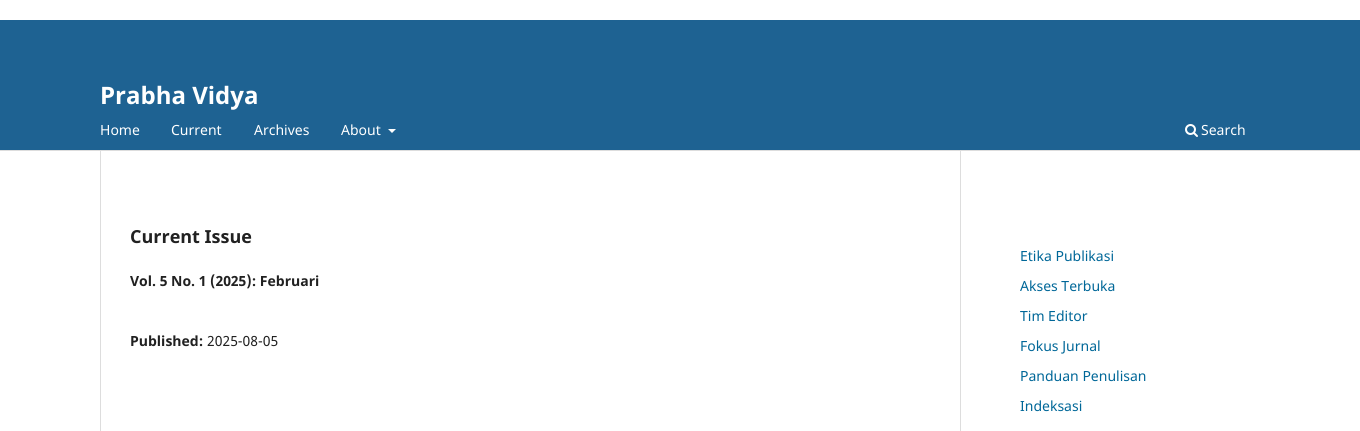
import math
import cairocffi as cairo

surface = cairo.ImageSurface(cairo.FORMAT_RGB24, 1360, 431)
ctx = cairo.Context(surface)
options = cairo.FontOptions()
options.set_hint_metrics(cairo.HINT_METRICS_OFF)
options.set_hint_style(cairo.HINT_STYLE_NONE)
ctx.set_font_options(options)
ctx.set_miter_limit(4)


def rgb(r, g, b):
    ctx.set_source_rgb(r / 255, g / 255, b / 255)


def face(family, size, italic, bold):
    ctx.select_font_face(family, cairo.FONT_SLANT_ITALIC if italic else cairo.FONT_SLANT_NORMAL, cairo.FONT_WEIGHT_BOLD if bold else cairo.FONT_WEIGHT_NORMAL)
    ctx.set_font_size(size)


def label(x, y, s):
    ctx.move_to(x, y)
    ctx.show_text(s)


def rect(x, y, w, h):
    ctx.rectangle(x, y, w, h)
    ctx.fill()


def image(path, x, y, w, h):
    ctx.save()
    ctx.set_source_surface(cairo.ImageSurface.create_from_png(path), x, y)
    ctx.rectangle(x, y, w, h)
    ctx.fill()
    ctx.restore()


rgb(255, 255, 255)
ctx.paint()
rgb(30, 98, 146)
rect(0, 20, 1360, 130)
rgb(221, 221, 221)
rect(0, 150, 1360, 1)
face('Noto Sans', 24, 0, 1)
rgb(255, 255, 255)
label(100, 104, 'Prabha Vidya')
face('Noto Sans', 14, 0, 0)
label(100, 135, 'Home')
label(171, 135, 'Current')
label(254, 135, 'Archives')
label(341, 135, 'About')
ctx.new_path()
ctx.move_to(388, 129)
ctx.line_to(396, 129)
ctx.line_to(392, 133)
ctx.close_path()
ctx.fill()
image('image0.png', 1185, 124, 13, 13)
label(1201, 135, 'Search')
rgb(221, 221, 221)
rect(100, 151, 1, 280)
face('Noto Sans', 18, 0, 1)
rgb(33, 33, 33)
label(130, 243, 'Current Issue')
face('Noto Sans', 14, 0, 1)
label(130, 286, 'Vol. 5 No. 1 (2025): Februari')
label(130, 346, 'Published:')
face('Noto Sans', 14, 0, 0)
label(207, 346, '2025-08-05')
rgb(221, 221, 221)
rect(960, 151, 1, 280)
rgb(0, 103, 152)
label(1020, 261, 'Etika Publikasi')
label(1020, 291, 'Akses Terbuka')
label(1020, 321, 'Tim Editor')
label(1020, 351, 'Fokus Jurnal')
label(1020, 381, 'Panduan Penulisan')
label(1020, 411, 'Indeksasi')
surface.write_to_png('render.png')
